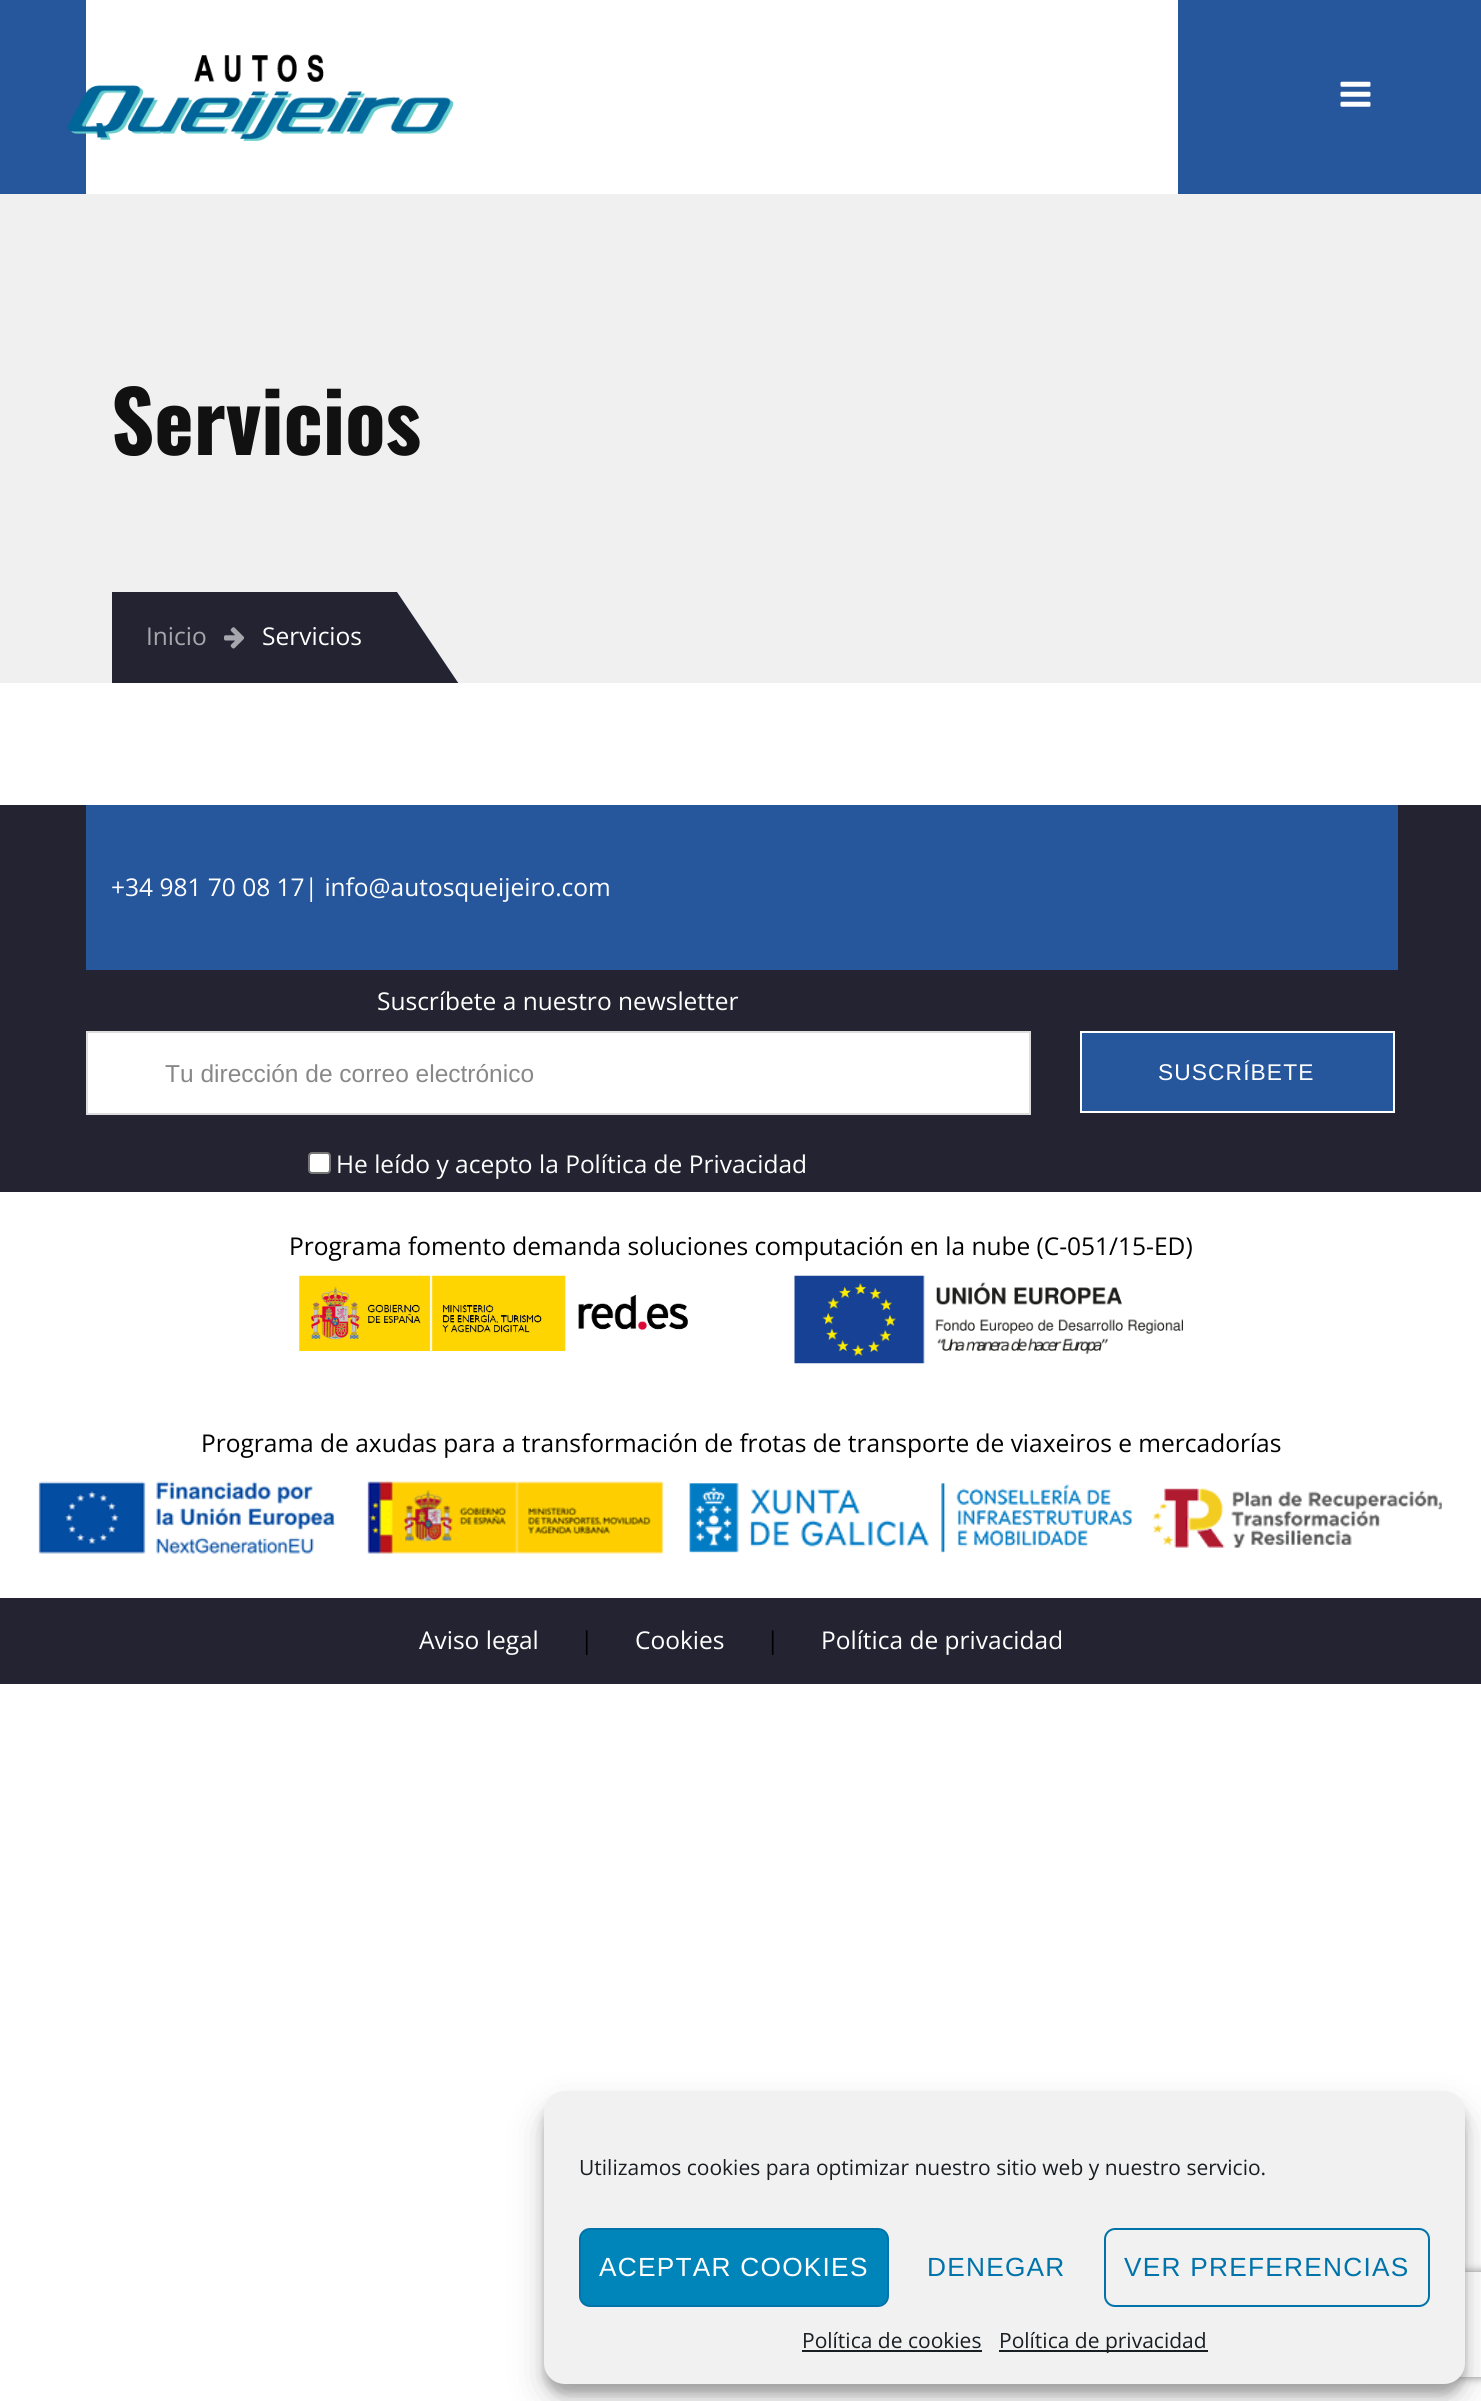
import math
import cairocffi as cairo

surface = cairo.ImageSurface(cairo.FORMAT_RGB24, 1481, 2401)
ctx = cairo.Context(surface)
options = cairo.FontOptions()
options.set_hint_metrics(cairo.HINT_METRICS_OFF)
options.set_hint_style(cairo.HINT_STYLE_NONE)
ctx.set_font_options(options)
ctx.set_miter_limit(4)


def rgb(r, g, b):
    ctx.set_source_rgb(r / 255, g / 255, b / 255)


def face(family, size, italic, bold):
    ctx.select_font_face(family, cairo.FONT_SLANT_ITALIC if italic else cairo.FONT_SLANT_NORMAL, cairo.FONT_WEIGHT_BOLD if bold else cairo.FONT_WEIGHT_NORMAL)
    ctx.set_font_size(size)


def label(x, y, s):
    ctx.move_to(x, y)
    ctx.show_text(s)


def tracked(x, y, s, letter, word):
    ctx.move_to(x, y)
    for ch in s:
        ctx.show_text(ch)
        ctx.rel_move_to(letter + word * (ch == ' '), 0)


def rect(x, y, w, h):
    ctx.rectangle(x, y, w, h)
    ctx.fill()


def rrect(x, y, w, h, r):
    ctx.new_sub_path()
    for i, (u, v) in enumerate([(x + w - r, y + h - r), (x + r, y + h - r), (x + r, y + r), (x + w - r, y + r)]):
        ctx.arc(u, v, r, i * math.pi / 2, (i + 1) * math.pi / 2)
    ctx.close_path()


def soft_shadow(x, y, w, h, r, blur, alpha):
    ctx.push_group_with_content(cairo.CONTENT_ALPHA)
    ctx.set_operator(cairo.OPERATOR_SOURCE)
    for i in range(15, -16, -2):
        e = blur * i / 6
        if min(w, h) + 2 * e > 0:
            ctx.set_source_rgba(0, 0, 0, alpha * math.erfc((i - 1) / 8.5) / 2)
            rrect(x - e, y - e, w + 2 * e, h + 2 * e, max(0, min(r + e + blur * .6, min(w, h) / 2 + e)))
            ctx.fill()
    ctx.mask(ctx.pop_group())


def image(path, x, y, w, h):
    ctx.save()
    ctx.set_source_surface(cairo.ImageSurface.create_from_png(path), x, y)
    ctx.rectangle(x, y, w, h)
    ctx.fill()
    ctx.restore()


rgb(255, 255, 255)
ctx.paint()
rgb(38, 86, 155)
rect(0, 0, 1481, 194)
rgb(255, 255, 255)
rect(86, 0, 1092, 194)
image('image0.png', 67, 54, 387, 87)
image('image1.png', 1340, 81, 31, 26)
rgb(240, 240, 240)
rect(0, 194, 1481, 489)
face('Oswald', 84, 0, 1)
rgb(17, 17, 17)
label(111, 455, 'Servicios')
rgb(35, 35, 49)
rect(112, 592, 285, 91)
face('Open Sans', 24.5, 0, 0)
rgb(166, 166, 172)
label(146, 645, 'Inicio')
image('image2.png', 224, 627, 21, 22)
rgb(255, 255, 255)
label(262, 645, 'Servicios')
ctx.save()
ctx.rectangle(112, 592, 1260, 91)
ctx.clip()
rgb(35, 35, 49)
ctx.new_path()
ctx.move_to(397, 696)
ctx.line_to(397, 592)
ctx.line_to(467, 696)
ctx.close_path()
ctx.fill()
ctx.restore()
rgb(35, 35, 49)
rect(0, 805, 1481, 387)
rgb(38, 86, 155)
rect(86, 805, 1312, 165)
rgb(255, 255, 255)
label(111, 896, '+34 981 70 08 17| info@autosqueijeiro.com')
label(377, 1010, 'Suscríbete a nuestro newsletter')
ctx.rectangle(87, 1032, 943, 82)
ctx.fill_preserve()
rgb(221, 221, 221)
ctx.stroke()
face('Liberation Sans', 24.5, 0, 0)
rgb(136, 136, 136)
label(165, 1082, 'Tu dirección de correo electrónico')
rgb(255, 255, 255)
rrect(309, 1153, 21, 20, 3)
ctx.fill_preserve()
rgb(118, 118, 118)
ctx.stroke()
face('Open Sans', 24.5, 0, 0)
rgb(255, 255, 255)
label(336, 1173, 'He leído y acepto la Política de Privacidad')
rgb(38, 86, 155)
ctx.rectangle(1081, 1032, 313, 80)
ctx.fill_preserve()
rgb(255, 255, 255)
ctx.stroke()
face('Liberation Sans', 22.75, 0, 0)
tracked(1158, 1080, 'SUSCRÍBETE', 1.1, 0)
face('Open Sans', 24.5, 0, 0)
rgb(0, 0, 0)
label(289, 1255, 'Programa fomento demanda soluciones computación en la nube (C-051/15-ED)')
image('image3.png', 299, 1275, 389, 76)
image('image4.png', 794, 1275, 389, 89)
label(201, 1452, 'Programa de axudas para a transformación de frotas de transporte de viaxeiros e mercadorías')
image('image5.png', 38, 1481, 1404, 73)
rgb(35, 35, 49)
rect(0, 1598, 1481, 86)
rgb(255, 255, 255)
label(419, 1649, 'Aviso legal')
rgb(0, 0, 0)
label(580, 1649, '|')
rgb(255, 255, 255)
label(635, 1649, 'Cookies')
rgb(0, 0, 0)
label(766, 1649, '|')
rgb(255, 255, 255)
label(821, 1649, 'Política de privacidad')
rgb(0, 0, 0)
soft_shadow(544, 2102, 921, 292, 21, 5, 0.23)
soft_shadow(544, 2109, 921, 292, 21, 17.5, 0.19)
ctx.save()
ctx.set_fill_rule(cairo.FILL_RULE_EVEN_ODD)
ctx.new_path()
ctx.move_to(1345, 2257)
ctx.line_to(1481, 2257)
ctx.line_to(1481, 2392)
ctx.line_to(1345, 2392)
ctx.close_path()
ctx.move_to(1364, 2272)
ctx.line_to(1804, 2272)
ctx.curve_to(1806, 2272, 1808, 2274, 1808, 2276)
ctx.line_to(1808, 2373)
ctx.curve_to(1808, 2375, 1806, 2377, 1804, 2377)
ctx.line_to(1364, 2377)
ctx.curve_to(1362, 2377, 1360, 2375, 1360, 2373)
ctx.line_to(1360, 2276)
ctx.curve_to(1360, 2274, 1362, 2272, 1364, 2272)
ctx.close_path()
ctx.clip()
rgb(128, 128, 128)
soft_shadow(1360, 2272, 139, 105, 4, 4.5, 1)
ctx.restore()
rgb(241, 241, 241)
rrect(544, 2091, 921, 293, 21)
ctx.fill()
face('Open Sans', 21, 0, 0)
rgb(25, 30, 35)
label(579, 2175, 'Utilizamos cookies para optimizar nuestro sitio web y nuestro servicio.')
rgb(0, 133, 186)
rrect(580, 2229, 308, 77, 10)
ctx.fill_preserve()
rgb(0, 115, 170)
ctx.stroke()
face('Liberation Sans', 26.25, 0, 0)
rgb(255, 255, 255)
tracked(599, 2276, 'ACEPTAR COOKIES', 1.25, 0)
rgb(0, 115, 170)
tracked(927, 2276, 'DENEGAR', 1.25, 0)
rrect(1105, 2229, 324, 77, 10)
ctx.stroke()
tracked(1124, 2276, 'VER PREFERENCIAS', 1.25, 0)
face('Open Sans', 21, 0, 0)
rgb(25, 30, 35)
label(802, 2348, 'Política de cookies')
rect(802, 2350, 180, 2)
rect(999, 2350, 209, 2)
label(999, 2348, 'Política de privacidad')
surface.write_to_png('render.png')
